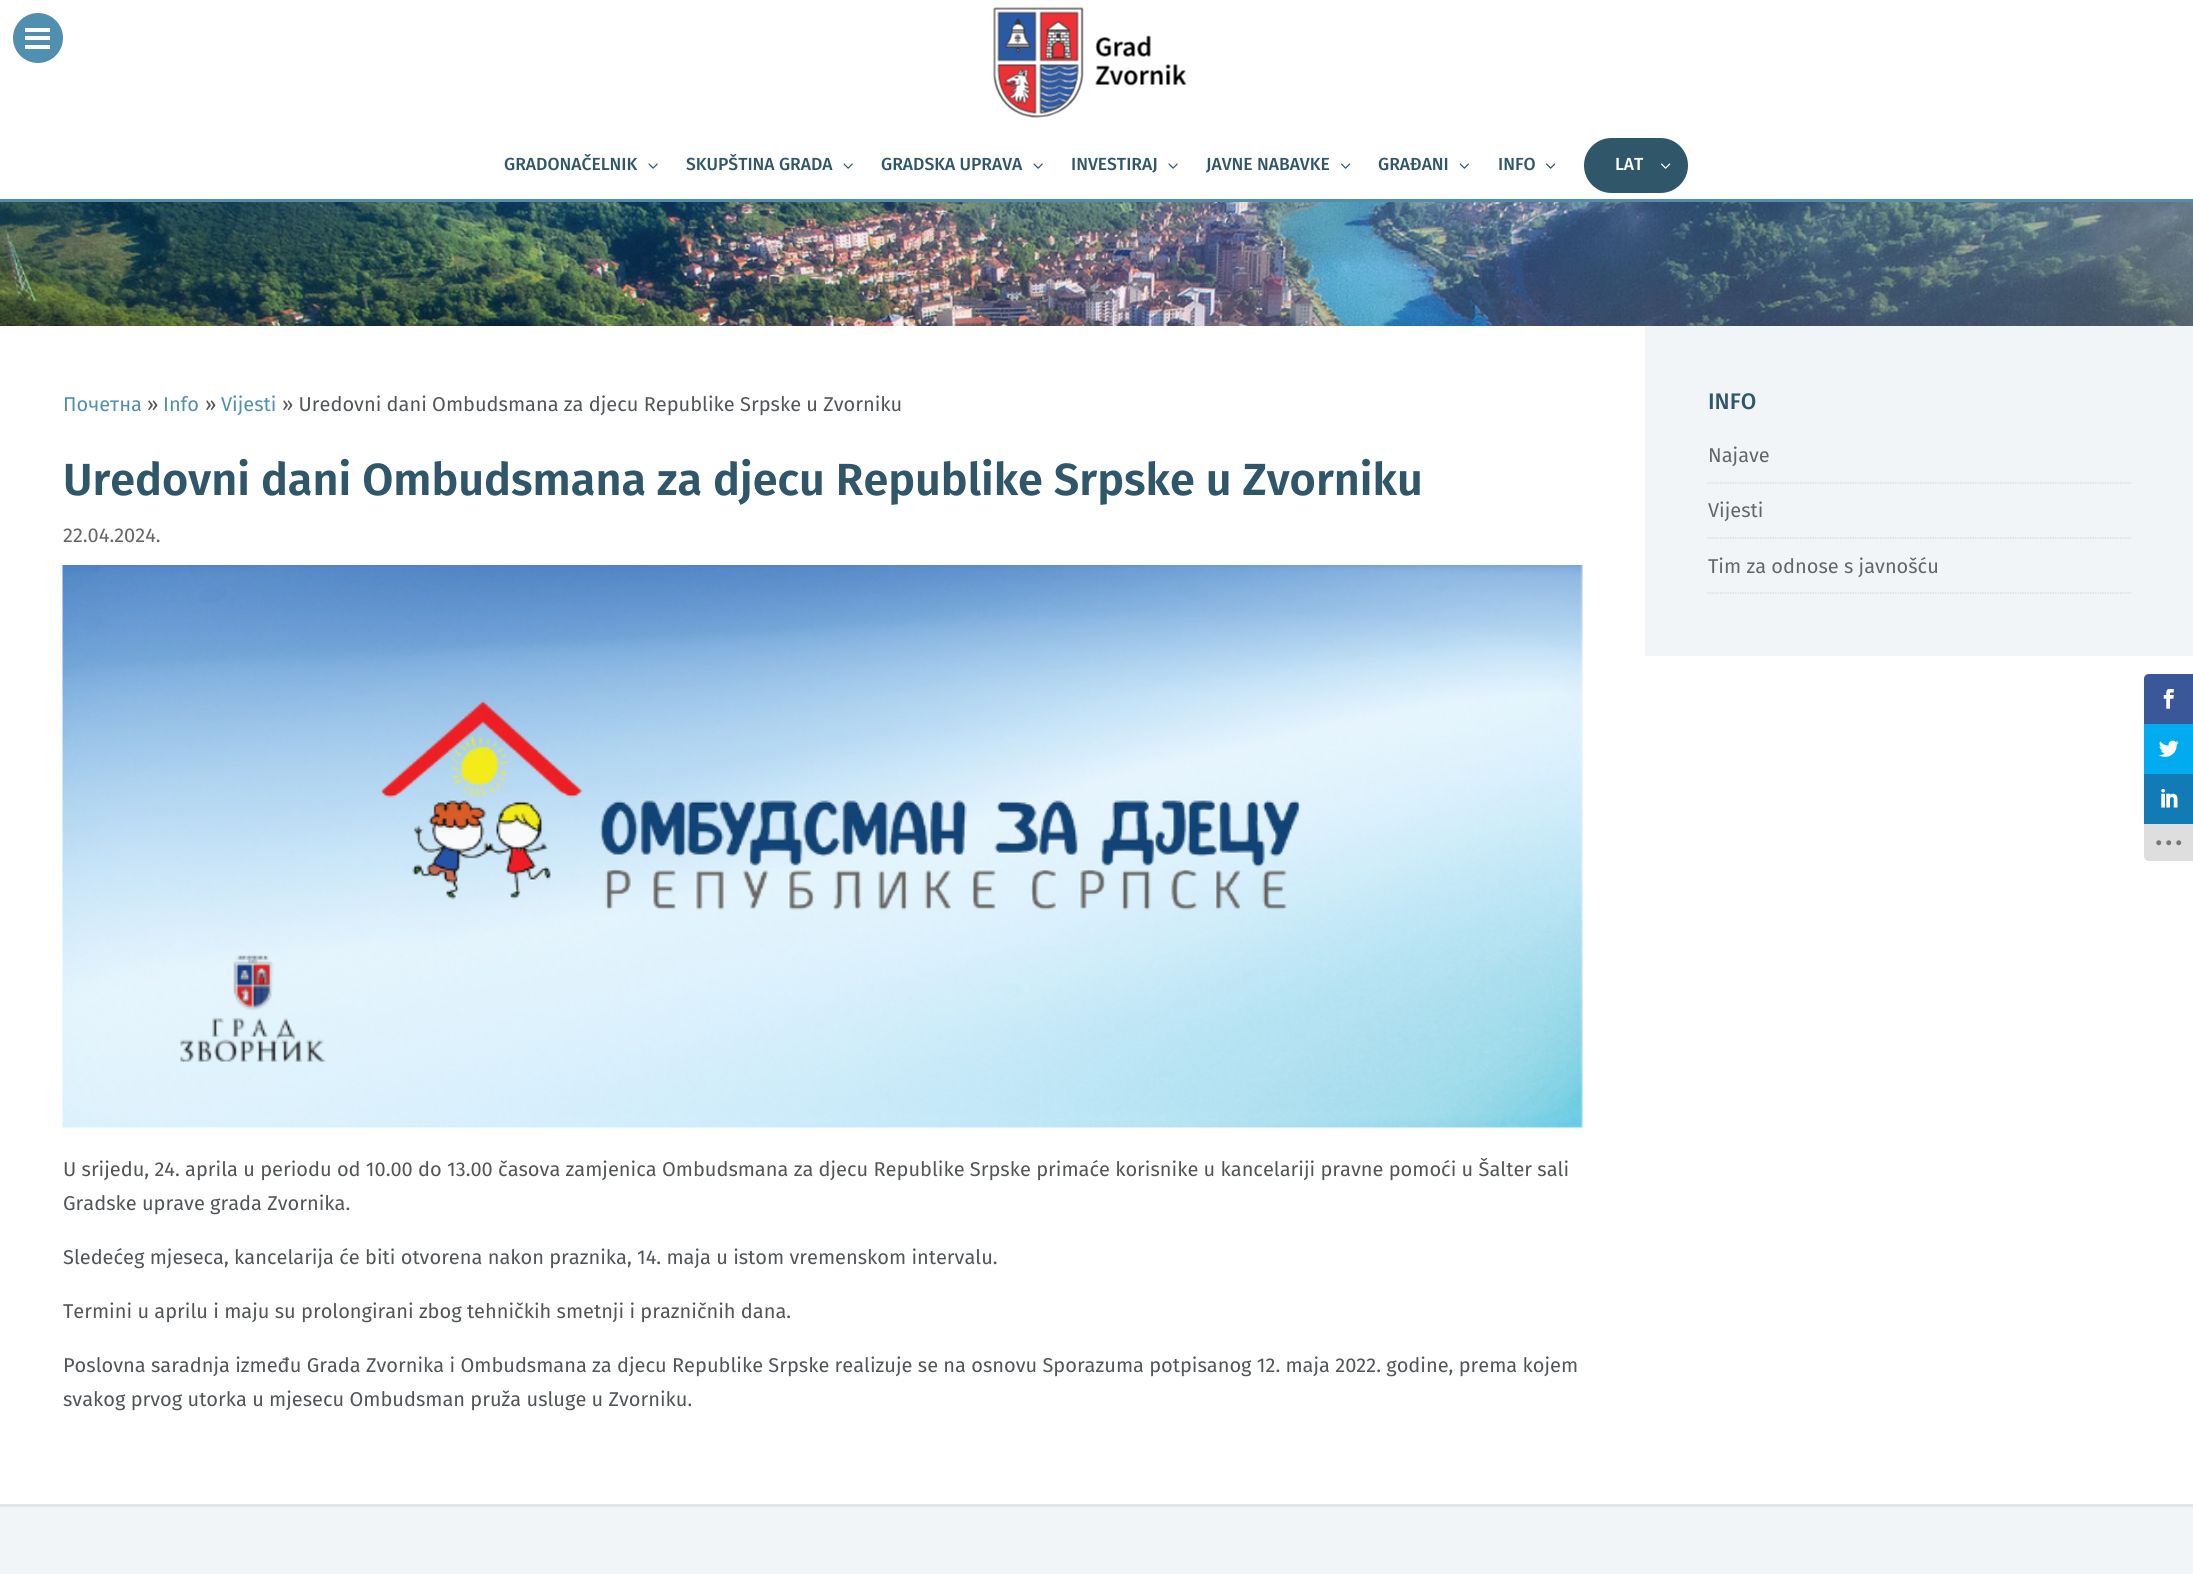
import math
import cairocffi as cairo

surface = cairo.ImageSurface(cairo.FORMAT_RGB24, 2193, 1574)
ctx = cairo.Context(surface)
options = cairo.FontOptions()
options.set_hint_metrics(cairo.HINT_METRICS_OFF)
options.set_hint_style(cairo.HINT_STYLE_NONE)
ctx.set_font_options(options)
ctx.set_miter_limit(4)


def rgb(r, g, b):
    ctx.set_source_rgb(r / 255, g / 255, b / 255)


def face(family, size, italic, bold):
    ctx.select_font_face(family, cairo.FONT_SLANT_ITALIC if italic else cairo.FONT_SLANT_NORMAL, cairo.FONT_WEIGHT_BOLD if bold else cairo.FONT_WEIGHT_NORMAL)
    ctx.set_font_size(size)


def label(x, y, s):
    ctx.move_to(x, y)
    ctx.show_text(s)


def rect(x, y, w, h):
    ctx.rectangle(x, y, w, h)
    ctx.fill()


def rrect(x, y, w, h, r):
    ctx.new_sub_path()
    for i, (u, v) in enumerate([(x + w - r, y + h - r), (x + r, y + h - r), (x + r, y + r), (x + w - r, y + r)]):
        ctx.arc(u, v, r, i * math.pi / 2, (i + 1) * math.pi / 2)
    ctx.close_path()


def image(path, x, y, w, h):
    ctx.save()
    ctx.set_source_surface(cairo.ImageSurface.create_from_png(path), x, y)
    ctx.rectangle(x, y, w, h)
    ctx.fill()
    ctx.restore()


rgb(255, 255, 255)
ctx.paint()
rgb(80, 143, 176)
ctx.arc(38, 38, 25, 0, 2 * math.pi)
ctx.fill()
rgb(255, 255, 255)
rect(25, 28, 25, 4)
rect(25, 36, 25, 4)
rect(25, 45, 25, 4)
rgb(80, 143, 176)
rect(0, 199, 2193, 3)
image('image0.png', 993, 7, 194, 111)
face('Fira Sans Medium', 17.5, 0, 0)
rgb(48, 86, 106)
label(504, 170, 'GRADONAČELNIK')
image('image1.png', 648, 163, 10, 6)
label(686, 170, 'SKUPŠTINA GRADA')
image('image1.png', 843, 163, 10, 6)
label(881, 170, 'GRADSKA UPRAVA')
image('image1.png', 1033, 163, 10, 6)
label(1071, 170, 'INVESTIRAJ')
image('image1.png', 1168, 163, 10, 6)
label(1206, 170, 'JAVNE NABAVKE')
image('image2.png', 1341, 163, 10, 6)
label(1378, 170, 'GRAĐANI')
image('image3.png', 1459, 163, 10, 6)
label(1498, 170, 'INFO')
image('image2.png', 1546, 163, 10, 6)
rrect(1584, 138, 104, 55, 27.5)
ctx.fill()
rgb(255, 255, 255)
label(1615, 170, 'LAT')
image('image4.png', 1661, 163, 10, 6)
image('image5.png', 0, 202, 2193, 124)
face('Fira Sans', 20, 0, 0)
rgb(80, 143, 176)
label(63, 411, 'Почетна')
rgb(81, 85, 87)
label(147, 411, '»')
rgb(80, 143, 176)
label(163, 411, 'Info')
rgb(81, 85, 87)
label(205, 411, '»')
rgb(80, 143, 176)
label(221, 411, 'Vijesti')
rgb(81, 85, 87)
label(282, 411, '» Uredovni dani Ombudsmana za djecu Republike Srpske u Zvorniku')
face('Fira Sans SemiBold', 45, 0, 0)
rgb(48, 86, 106)
label(63, 495, 'Uredovni dani Ombudsmana za djecu Republike Srpske u Zvorniku')
face('Fira Sans', 20, 0, 0)
rgb(102, 102, 102)
label(63, 542, '22.04.2024.')
image('image6.png', 62, 565, 1521, 563)
rgb(81, 85, 87)
label(63, 1176, 'U srijedu, 24. aprila u periodu od 10.00 do 13.00 časova zamjenica Ombudsmana za djecu Republike Srpske primaće korisnike u kancelariji pravne pomoći u Šalter sali')
label(63, 1210, 'Gradske uprave grada Zvornika.')
label(63, 1264, 'Sledećeg mjeseca, kancelarija će biti otvorena nakon praznika, 14. maja u istom vremenskom intervalu.')
label(63, 1318, 'Termini u aprilu i maju su prolongirani zbog tehničkih smetnji i prazničnih dana.')
label(63, 1372, 'Poslovna saradnja između Grada Zvornika i Ombudsmana za djecu Republike Srpske realizuje se na osnovu Sporazuma potpisanog 12. maja 2022. godine, prema kojem')
label(63, 1406, 'svakog prvog utorka u mjesecu Ombudsman pruža usluge u Zvorniku.')
rgb(241, 245, 247)
rect(1645, 326, 548, 330)
face('Fira Sans Medium', 22.5, 0, 0)
rgb(48, 86, 106)
label(1708, 409, 'INFO')
ctx.new_path()
ctx.move_to(1707.5, 483)
ctx.line_to(2131, 483)
rgb(209, 213, 215)
ctx.set_line_width(1.2)
ctx.set_dash([1.25, 1.25])
ctx.stroke()
face('Fira Sans', 20, 0, 0)
rgb(102, 102, 102)
label(1708, 462, 'Najave')
ctx.new_path()
ctx.move_to(1707.5, 538)
ctx.line_to(2131, 538)
rgb(209, 213, 215)
ctx.stroke()
rgb(102, 102, 102)
label(1708, 517, 'Vijesti')
ctx.new_path()
ctx.move_to(1707.5, 593)
ctx.line_to(2131, 593)
rgb(209, 213, 215)
ctx.stroke()
rgb(102, 102, 102)
label(1708, 573, 'Tim za odnose s javnošću')
rgb(241, 245, 247)
rect(0, 1507, 2193, 67)
rgb(225, 229, 231)
rect(0, 1504, 2193, 3)
rgb(58, 87, 154)
ctx.new_path()
ctx.move_to(2149, 674)
ctx.line_to(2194, 674)
ctx.line_to(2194, 724)
ctx.line_to(2144, 724)
ctx.line_to(2144, 679)
ctx.curve_to(2144, 676, 2146, 674, 2149, 674)
ctx.close_path()
ctx.fill()
image('image7.png', 2163, 689, 11, 20)
rgb(0, 171, 240)
rect(2144, 724, 49, 50)
image('image8.png', 2159, 740, 20, 17)
rgb(18, 123, 182)
rect(2144, 774, 49, 50)
image('image9.png', 2161, 789, 17, 19)
rgb(222, 222, 222)
ctx.new_path()
ctx.move_to(2144, 824)
ctx.line_to(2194, 824)
ctx.line_to(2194, 861)
ctx.line_to(2149, 861)
ctx.curve_to(2146, 861, 2144, 859, 2144, 856)
ctx.close_path()
ctx.fill()
image('image10.png', 2156, 840, 26, 6)
surface.write_to_png('render.png')
